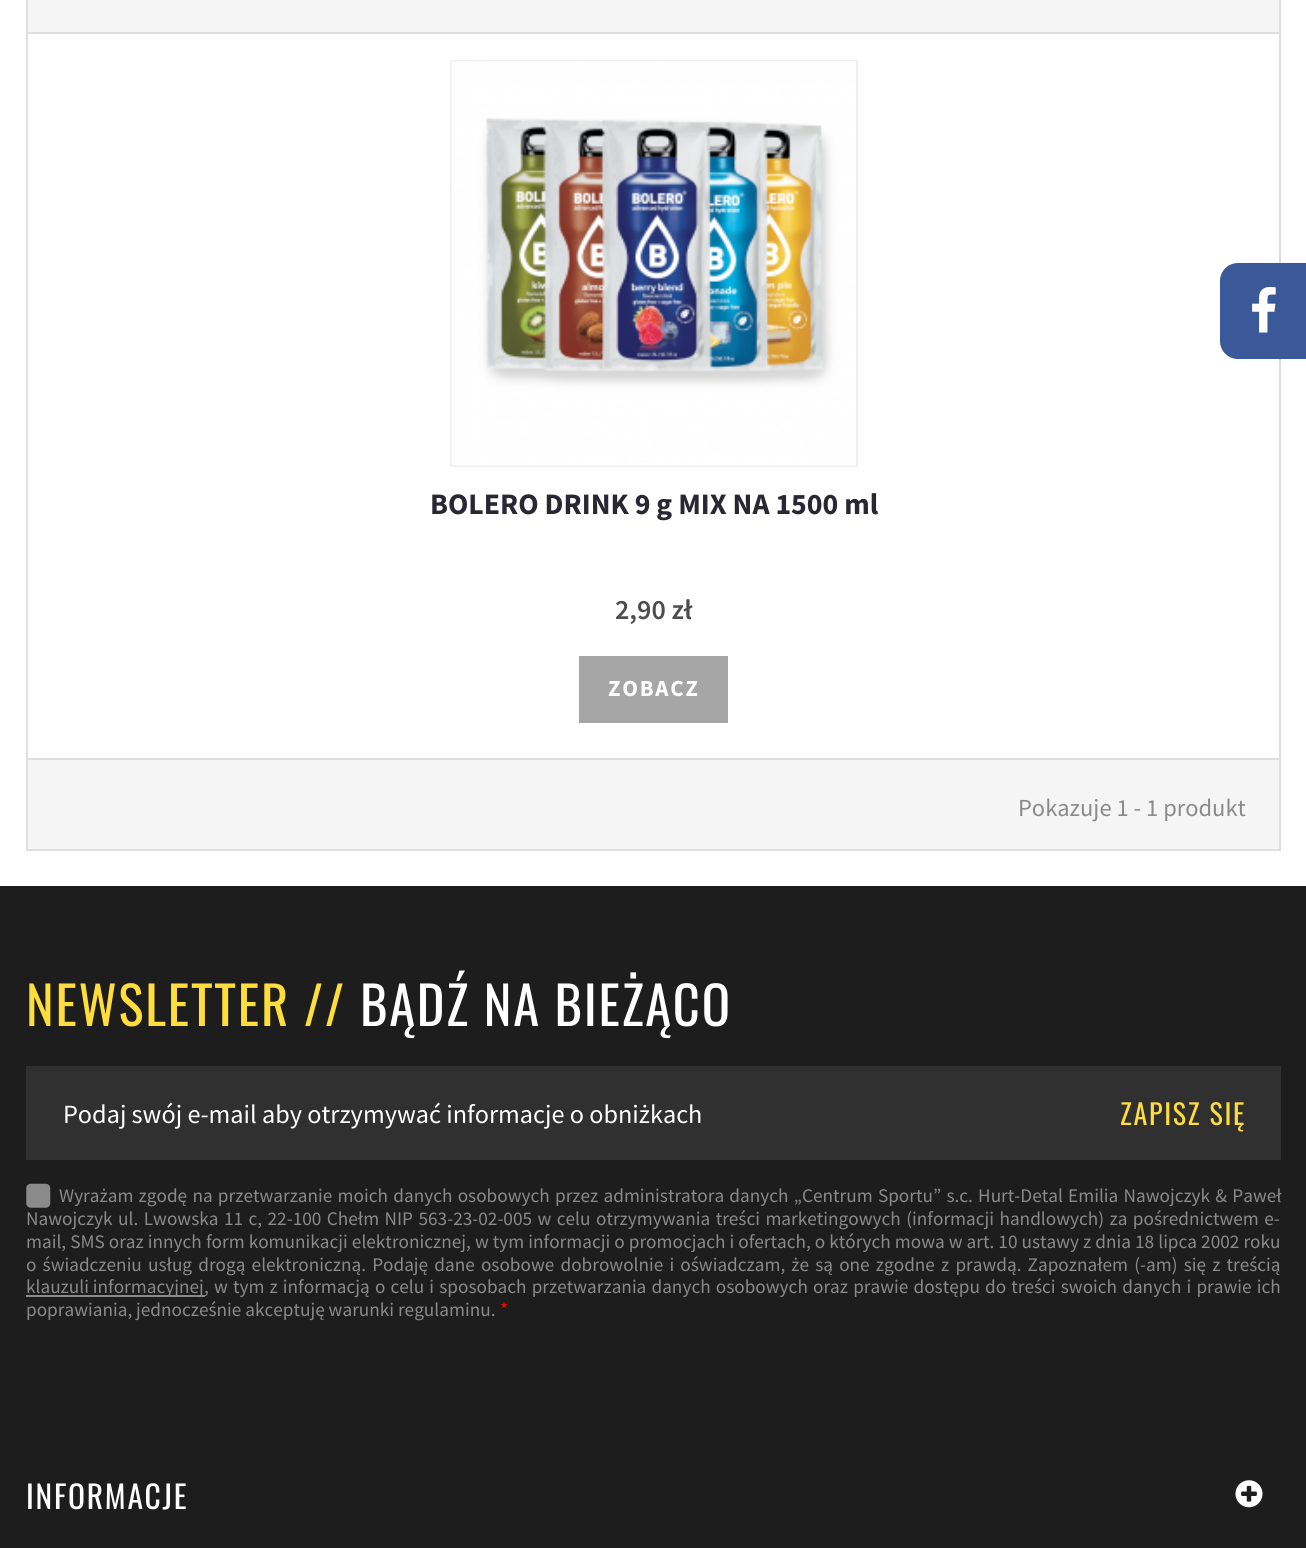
import math
import cairocffi as cairo

surface = cairo.ImageSurface(cairo.FORMAT_RGB24, 1306, 1548)
ctx = cairo.Context(surface)
options = cairo.FontOptions()
options.set_hint_metrics(cairo.HINT_METRICS_OFF)
options.set_hint_style(cairo.HINT_STYLE_NONE)
ctx.set_font_options(options)
ctx.set_miter_limit(4)


def rgb(r, g, b):
    ctx.set_source_rgb(r / 255, g / 255, b / 255)


def face(family, size, italic, bold):
    ctx.select_font_face(family, cairo.FONT_SLANT_ITALIC if italic else cairo.FONT_SLANT_NORMAL, cairo.FONT_WEIGHT_BOLD if bold else cairo.FONT_WEIGHT_NORMAL)
    ctx.set_font_size(size)


def label(x, y, s):
    ctx.move_to(x, y)
    ctx.show_text(s)


def tracked(x, y, s, letter, word):
    ctx.move_to(x, y)
    for ch in s:
        ctx.show_text(ch)
        ctx.rel_move_to(letter + word * (ch == ' '), 0)


def rect(x, y, w, h):
    ctx.rectangle(x, y, w, h)
    ctx.fill()


def image(path, x, y, w, h):
    ctx.save()
    ctx.set_source_surface(cairo.ImageSurface.create_from_png(path), x, y)
    ctx.rectangle(x, y, w, h)
    ctx.fill()
    ctx.restore()


rgb(255, 255, 255)
ctx.paint()
ctx.rectangle(27, 33, 1253, 726)
rgb(223, 223, 223)
ctx.stroke()
rgb(59, 89, 152)
ctx.new_path()
ctx.move_to(1238, 263)
ctx.line_to(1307, 263)
ctx.line_to(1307, 359)
ctx.line_to(1238, 359)
ctx.curve_to(1228, 359, 1220, 351, 1220, 341)
ctx.line_to(1220, 281)
ctx.curve_to(1220, 271, 1228, 263, 1238, 263)
ctx.close_path()
ctx.fill()
image('image0.png', 1252, 287, 24, 46)
rgb(245, 245, 245)
rect(28, 0, 1251, 32)
rgb(223, 223, 223)
rect(1279, 0, 2, 32)
rect(26, 0, 2, 32)
ctx.rectangle(451, 61, 406, 405)
rgb(239, 239, 239)
ctx.stroke()
image('image1.png', 451, 61, 405, 405)
face('Source Sans Pro', 29.75, 0, 1)
rgb(41, 39, 51)
label(430, 514, 'BOLERO DRINK 9 g MIX NA 1500 ml')
face('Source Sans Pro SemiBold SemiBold', 28, 0, 0)
rgb(77, 77, 77)
label(615, 619, '2,90 zł')
rgb(166, 166, 166)
rect(579, 656, 149, 67)
face('Source Sans Pro', 23, 0, 1)
rgb(255, 255, 255)
tracked(608, 696, 'ZOBACZ', 1.75, 0)
rgb(245, 245, 245)
rect(28, 760, 1251, 89)
rgb(223, 223, 223)
rect(1279, 760, 2, 91)
rect(26, 849, 1255, 2)
rect(26, 760, 2, 91)
face('Source Sans Pro', 24.5, 0, 0)
rgb(138, 138, 138)
label(1018, 816, 'Pokazuje 1 - 1 produkt')
rgb(29, 29, 29)
rect(0, 886, 1306, 662)
face('Oswald', 52.5, 0, 0)
rgb(255, 221, 61)
tracked(26, 1026, 'NEWSLETTER //', 1.75, 0)
rgb(255, 255, 255)
tracked(360, 1026, 'BĄDŹ NA BIEŻĄCO', 1.75, 0)
rgb(48, 48, 48)
rect(26, 1066, 1255, 94)
face('Source Sans Pro', 26.25, 0, 0)
rgb(255, 255, 255)
label(63, 1123, 'Podaj swój e-mail aby otrzymywać informacje o obniżkach')
face('Oswald', 28, 0, 0)
rgb(255, 221, 61)
tracked(1120, 1125, 'ZAPISZ SIĘ', 1.75, 0)
image('image2.png', 26, 1183, 25, 25)
face('Source Sans Pro', 19.25, 0, 0)
rgb(138, 138, 138)
tracked(59, 1202, 'Wyrażam zgodę na przetwarzanie moich danych osobowych przez administratora danych „Centrum Sportu” s.c. Hurt-Detal Emilia Nawojczyk & Paweł', 0, 1.4)
tracked(26, 1225, 'Nawojczyk ul. Lwowska 11 c, 22-100 Chełm NIP 563-23-02-005 w celu otrzymywania treści marketingowych (informacji handlowych) za pośrednictwem e-', 0, 1.6)
tracked(26, 1248, 'mail, SMS oraz innych form komunikacji elektronicznej, w tym informacji o promocjach i ofertach, o których mowa w art. 10 ustawy z dnia 18 lipca 2002 roku', 0, 0.2)
tracked(26, 1271, 'o świadczeniu usług drogą elektroniczną. Podaję dane osobowe dobrowolnie i oświadczam, że są one zgodne z prawdą. Zapoznałem (-am) się z treścią', 0, 2.3)
rect(26, 1295, 179, 2)
label(26, 1293, 'klauzuli informacyjnej')
tracked(204, 1293, ', w tym z informacją o celu i sposobach przetwarzania danych osobowych oraz prawie dostępu do treści swoich danych i prawie ich', 0, 1.3)
label(26, 1316, 'poprawiania, jednocześnie akceptuję warunki regulaminu.')
rgb(255, 0, 0)
label(500, 1316, '*')
face('Oswald', 31.5, 0, 0)
rgb(255, 255, 255)
tracked(26, 1509, 'INFORMACJE', 1.75, 0)
image('image3.png', 1235, 1480, 28, 28)
surface.write_to_png('render.png')
